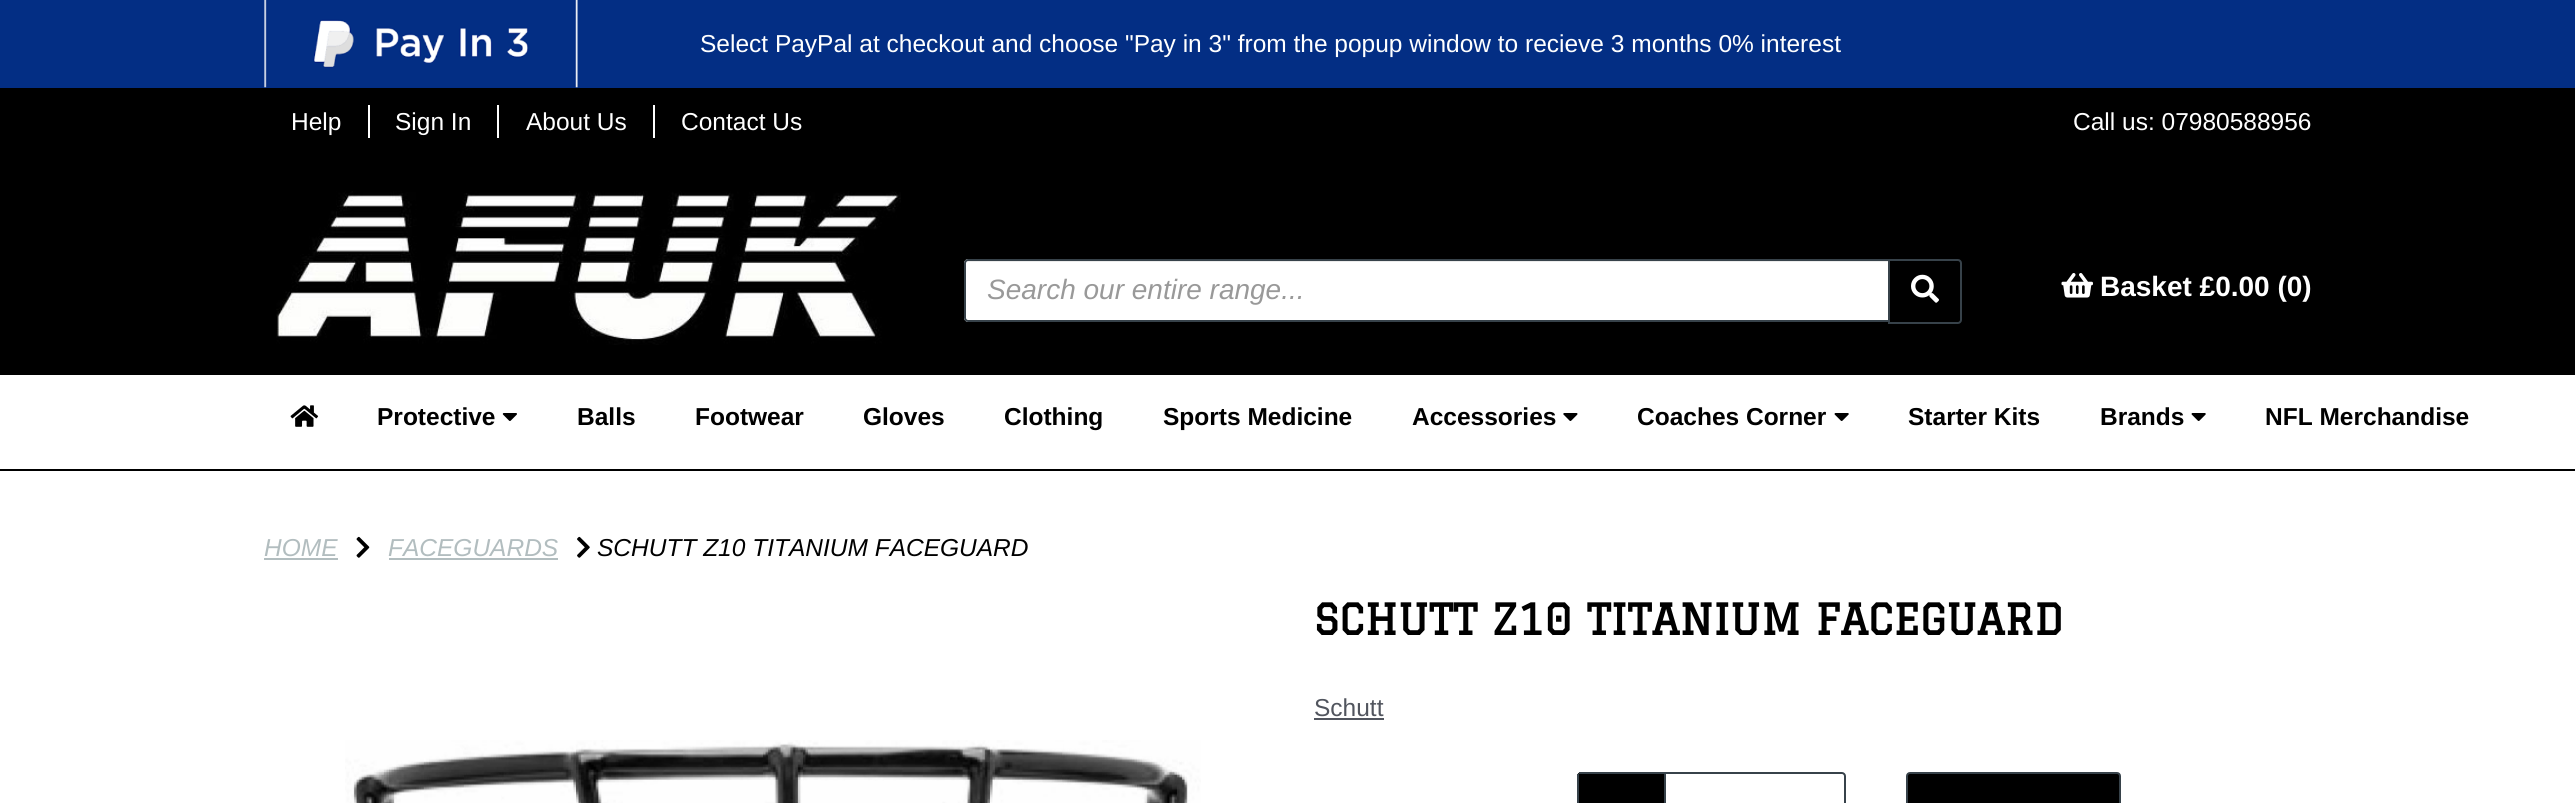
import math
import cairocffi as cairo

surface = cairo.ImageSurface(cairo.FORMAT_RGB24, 2575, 803)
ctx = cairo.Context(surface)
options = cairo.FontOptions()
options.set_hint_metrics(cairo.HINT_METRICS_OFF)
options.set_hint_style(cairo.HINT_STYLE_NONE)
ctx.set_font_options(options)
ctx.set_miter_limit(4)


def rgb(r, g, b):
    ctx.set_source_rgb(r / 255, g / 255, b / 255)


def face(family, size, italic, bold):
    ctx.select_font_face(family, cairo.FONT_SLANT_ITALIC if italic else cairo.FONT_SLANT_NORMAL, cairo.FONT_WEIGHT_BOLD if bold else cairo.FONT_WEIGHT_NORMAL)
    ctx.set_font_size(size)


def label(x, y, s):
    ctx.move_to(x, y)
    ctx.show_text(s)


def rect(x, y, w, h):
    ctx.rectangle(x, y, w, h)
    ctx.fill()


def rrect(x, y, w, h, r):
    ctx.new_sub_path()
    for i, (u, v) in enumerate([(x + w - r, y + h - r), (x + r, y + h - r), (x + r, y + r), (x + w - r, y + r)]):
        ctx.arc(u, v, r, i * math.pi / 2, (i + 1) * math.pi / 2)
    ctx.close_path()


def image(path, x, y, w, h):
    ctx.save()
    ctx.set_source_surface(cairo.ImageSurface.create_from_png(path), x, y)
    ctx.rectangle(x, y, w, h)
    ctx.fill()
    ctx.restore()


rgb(255, 255, 255)
ctx.paint()
rgb(3, 46, 132)
rect(0, 0, 2575, 88)
image('image0.png', 264, 0, 314, 88)
face('Liberation Sans', 24.5, 0, 0)
rgb(255, 255, 255)
label(700, 52, 'Select PayPal at checkout and choose "Pay in 3" from the popup window to recieve 3 months 0% interest')
rgb(0, 0, 0)
rect(0, 88, 2575, 287)
rgb(255, 255, 255)
rect(368, 105, 2, 33)
label(291, 130, 'Help')
rect(497, 105, 2, 33)
label(395, 130, 'Sign In')
rect(653, 105, 2, 33)
label(526, 130, 'About Us')
label(681, 130, 'Contact Us')
label(2073, 130, 'Call us: 07980588956')
image('image1.png', 276, 191, 625, 154)
ctx.new_path()
ctx.move_to(968, 259)
ctx.line_to(1890, 259)
ctx.line_to(1890, 322)
ctx.line_to(968, 322)
ctx.curve_to(966, 322, 964, 320, 964, 318)
ctx.line_to(964, 263)
ctx.curve_to(964, 261, 966, 259, 968, 259)
ctx.close_path()
ctx.fill()
rgb(236, 236, 236)
ctx.new_path()
ctx.move_to(968, 262)
ctx.line_to(1888, 262)
ctx.line_to(1888, 261)
ctx.line_to(968, 261)
ctx.curve_to(966, 261, 966, 263, 966, 264)
ctx.curve_to(966, 263, 967, 262, 968, 262)
ctx.close_path()
ctx.fill()
ctx.new_path()
ctx.move_to(968, 260)
ctx.line_to(1889, 260)
ctx.line_to(1889, 321)
ctx.line_to(968, 321)
ctx.curve_to(966.5, 321, 965, 319.5, 965, 318)
ctx.line_to(965, 263)
ctx.curve_to(965, 261.5, 966.5, 260, 968, 260)
ctx.close_path()
rgb(55, 66, 74)
ctx.stroke()
face('Liberation Sans', 28, 1, 0)
rgb(153, 153, 153)
label(987, 299, 'Search our entire range...')
rgb(0, 0, 0)
ctx.new_path()
ctx.move_to(1889, 260)
ctx.line_to(1958, 260)
ctx.curve_to(1959.5, 260, 1961, 261.5, 1961, 263)
ctx.line_to(1961, 320)
ctx.curve_to(1961, 321.5, 1959.5, 323, 1958, 323)
ctx.line_to(1889, 323)
ctx.close_path()
ctx.fill_preserve()
rgb(55, 66, 74)
ctx.stroke()
image('image2.png', 1911, 274, 28, 29)
image('image3.png', 2061, 273, 32, 25)
face('Liberation Sans', 28, 0, 1)
rgb(255, 255, 255)
label(2100, 296, 'Basket £0.00 (0)')
rgb(0, 0, 0)
rect(0, 469, 2575, 2)
image('image4.png', 290, 405, 29, 22)
face('Liberation Sans', 24.5, 0, 1)
label(377, 425, 'Protective')
image('image5.png', 502, 413, 15, 8)
label(577, 425, 'Balls')
label(695, 425, 'Footwear')
label(863, 425, 'Gloves')
label(1004, 425, 'Clothing')
label(1163, 425, 'Sports Medicine')
label(1412, 425, 'Accessories')
image('image6.png', 1563, 413, 15, 8)
label(1637, 425, 'Coaches Corner')
image('image7.png', 1834, 413, 15, 8)
label(1908, 425, 'Starter Kits')
label(2100, 425, 'Brands')
image('image7.png', 2191, 413, 15, 8)
label(2265, 425, 'NFL Merchandise')
face('Liberation Sans', 24.5, 1, 0)
rgb(178, 189, 191)
label(264, 556, 'HOME')
rect(264, 558, 74, 2)
image('image8.png', 356, 536, 14, 22)
label(388, 556, 'FACEGUARDS')
rect(389, 558, 169, 2)
image('image9.png', 577, 536, 13, 22)
rgb(0, 0, 0)
label(597, 556, 'SCHUTT Z10 TITANIUM FACEGUARD')
face('Graduate', 42, 0, 1)
label(1314, 635, 'SCHUTT Z10 TITANIUM FACEGUARD')
face('Liberation Sans', 24.5, 0, 0)
rgb(81, 85, 94)
label(1314, 716, 'Schutt')
rect(1314, 718, 70, 2)
rgb(0, 0, 0)
ctx.new_path()
ctx.move_to(1581, 772)
ctx.line_to(1664, 772)
ctx.line_to(1664, 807)
ctx.line_to(1581, 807)
ctx.curve_to(1579, 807, 1577, 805, 1577, 803)
ctx.line_to(1577, 776)
ctx.curve_to(1577, 774, 1579, 772, 1581, 772)
ctx.close_path()
ctx.fill()
rgb(55, 66, 74)
rect(1579, 772, 85, 2)
rect(1577, 774, 2, 29)
ctx.new_path()
ctx.move_to(1665, 773)
ctx.line_to(1842, 773)
ctx.curve_to(1843.5, 773, 1845, 774.5, 1845, 776)
ctx.line_to(1845, 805)
ctx.curve_to(1845, 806.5, 1843.5, 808, 1842, 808)
ctx.line_to(1665, 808)
ctx.close_path()
ctx.stroke()
rgb(0, 0, 0)
rrect(1907, 773, 213, 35, 3)
ctx.fill_preserve()
rgb(55, 66, 74)
ctx.stroke()
image('image10.png', 345, 740, 856, 63)
surface.write_to_png('render.png')
